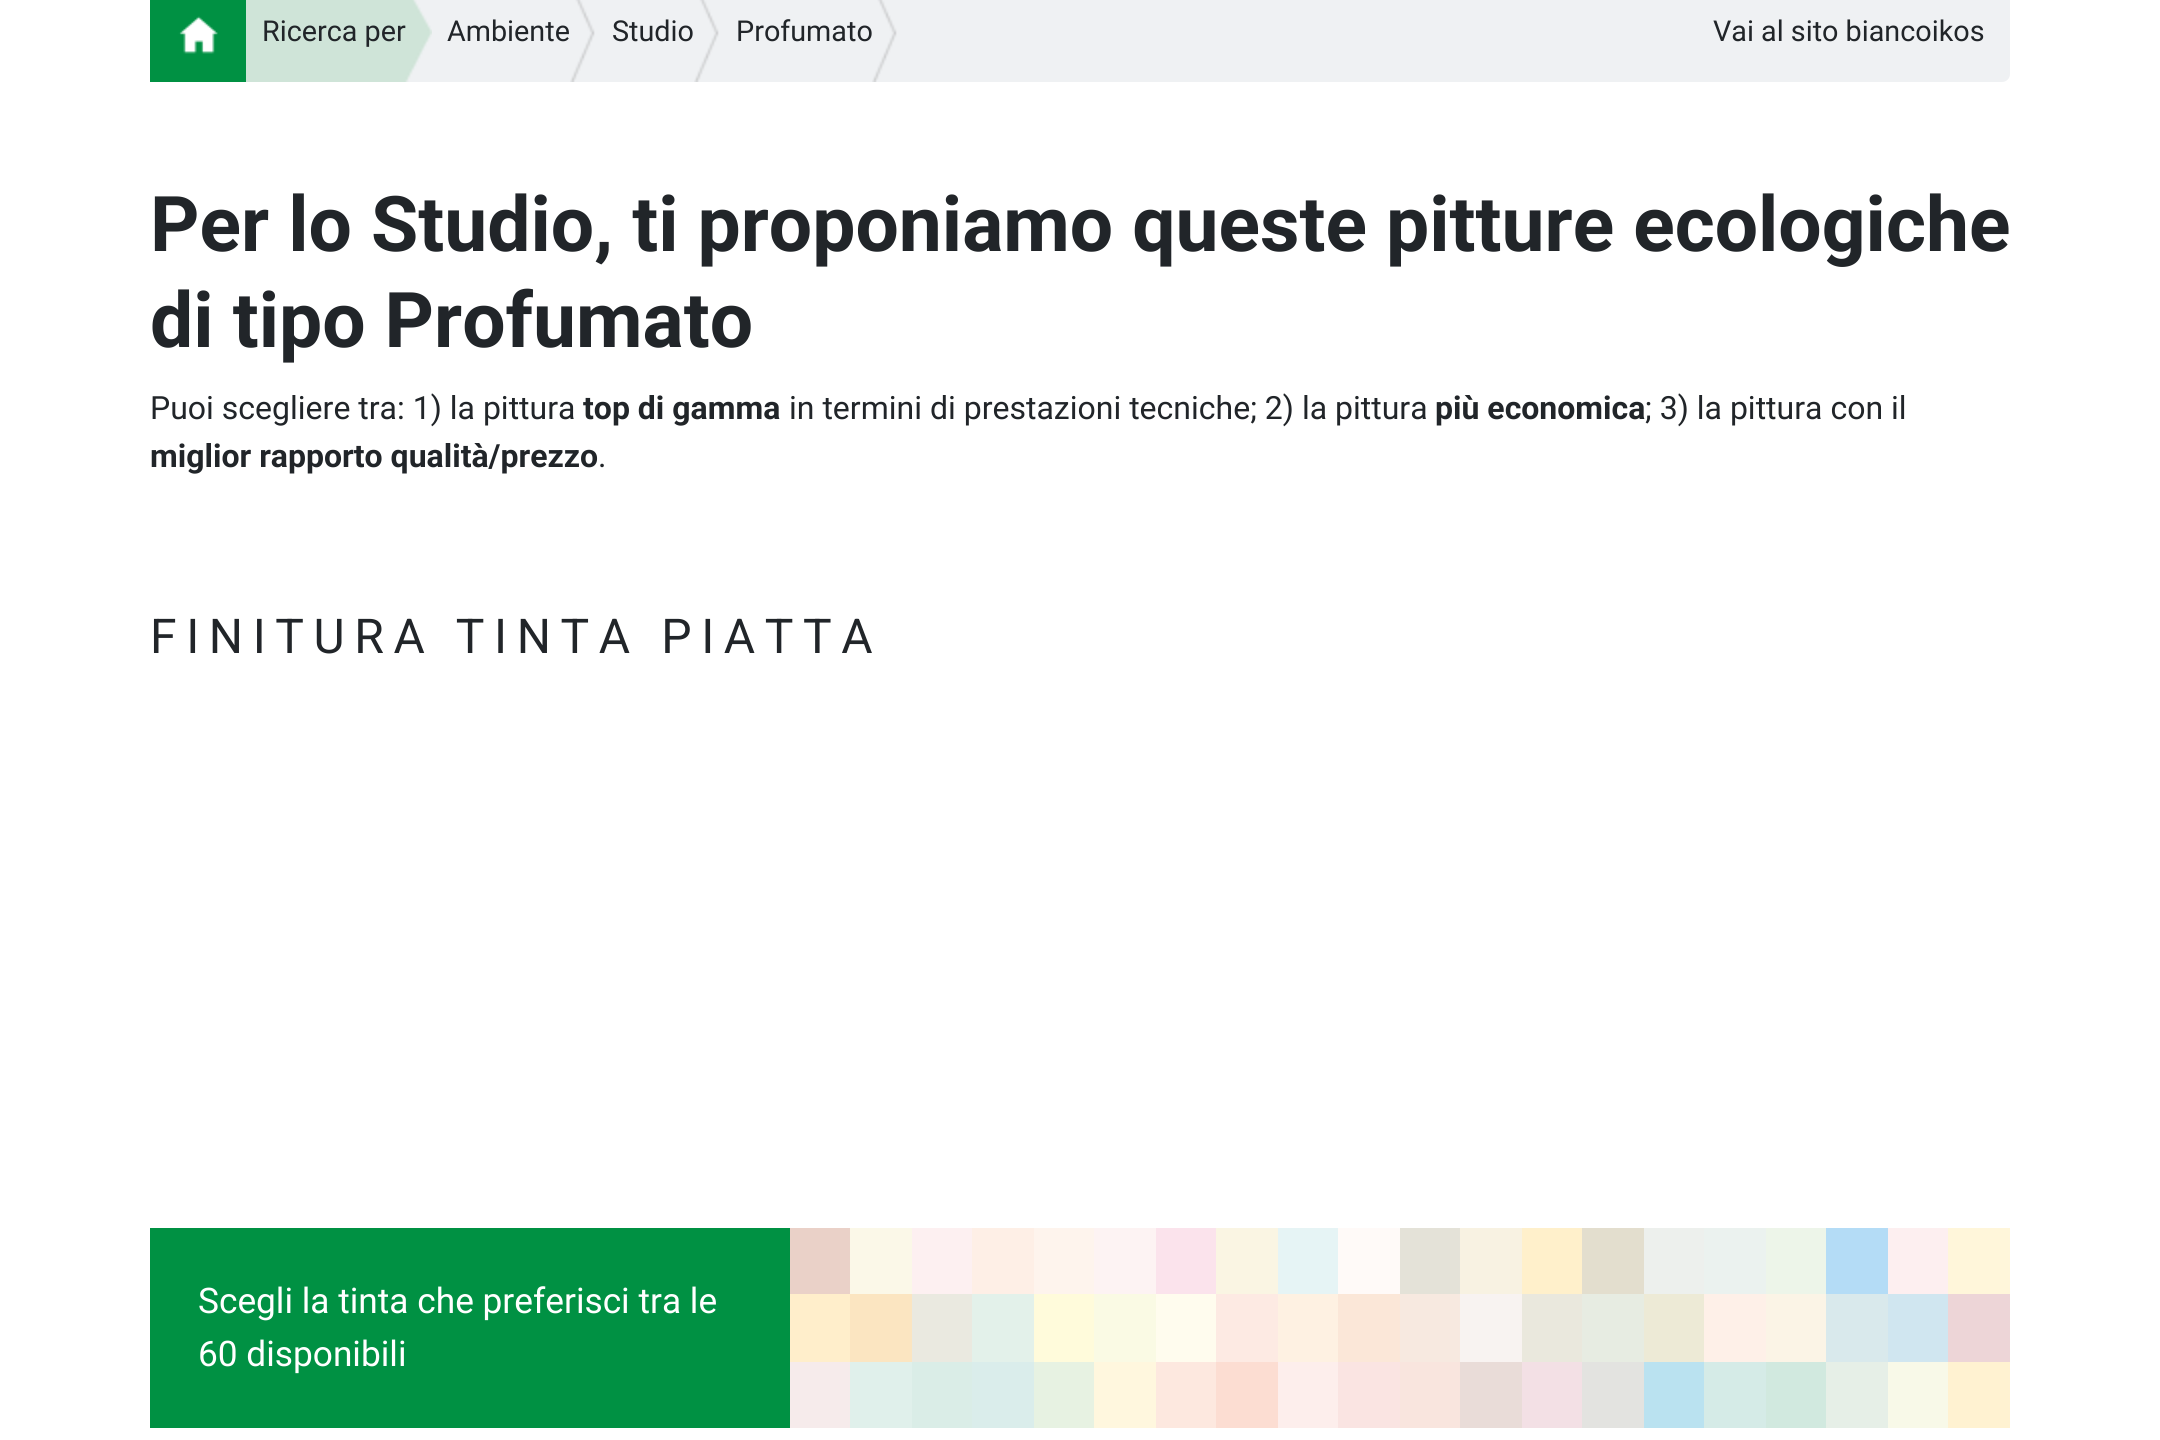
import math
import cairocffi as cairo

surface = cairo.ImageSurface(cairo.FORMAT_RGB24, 2160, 1440)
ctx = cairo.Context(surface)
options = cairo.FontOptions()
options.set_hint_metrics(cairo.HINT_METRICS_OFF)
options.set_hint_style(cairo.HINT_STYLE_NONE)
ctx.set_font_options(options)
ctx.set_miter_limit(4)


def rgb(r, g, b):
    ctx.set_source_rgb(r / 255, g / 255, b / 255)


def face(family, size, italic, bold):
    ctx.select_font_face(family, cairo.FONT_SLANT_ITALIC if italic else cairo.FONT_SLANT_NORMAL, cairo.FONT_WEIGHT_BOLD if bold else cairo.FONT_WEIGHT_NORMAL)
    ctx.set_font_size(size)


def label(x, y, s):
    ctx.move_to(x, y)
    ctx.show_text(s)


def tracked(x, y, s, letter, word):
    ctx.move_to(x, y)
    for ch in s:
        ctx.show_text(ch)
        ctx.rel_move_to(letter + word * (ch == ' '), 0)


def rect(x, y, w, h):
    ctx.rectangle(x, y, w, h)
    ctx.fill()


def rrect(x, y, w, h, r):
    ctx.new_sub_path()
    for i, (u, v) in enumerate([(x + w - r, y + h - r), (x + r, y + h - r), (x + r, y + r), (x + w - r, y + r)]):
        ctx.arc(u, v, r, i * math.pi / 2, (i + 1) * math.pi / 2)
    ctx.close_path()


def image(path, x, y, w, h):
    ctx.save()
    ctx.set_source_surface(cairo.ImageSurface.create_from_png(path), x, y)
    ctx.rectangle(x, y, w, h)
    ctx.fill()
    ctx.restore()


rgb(255, 255, 255)
ctx.paint()
rgb(239, 241, 243)
rrect(150, -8, 1860, 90, 8)
ctx.fill()
image('image0.png', 150, 0, 96, 82)
rgb(207, 228, 216)
rect(246, 0, 186, 82)
image('image1.png', 405, 0, 27, 82)
face('Roboto', 28.75, 0, 0)
rgb(33, 37, 41)
label(262, 41, 'Ricerca per')
image('image2.png', 570, 0, 25, 82)
label(447, 41, 'Ambiente')
image('image2.png', 694, 0, 25, 82)
label(612, 41, 'Studio')
image('image2.png', 872, 0, 25, 82)
label(736, 41, 'Profumato')
label(1713, 41, 'Vai al sito biancoikos')
face('Roboto', 76.8, 0, 1)
label(150, 251, 'Per lo Studio, ti proponiamo queste pitture ecologiche')
label(150, 347, 'di tipo Profumato')
face('Roboto', 32, 0, 0)
label(150, 419, 'Puoi scegliere tra: 1) la pittura')
face('Roboto', 32, 0, 1)
label(583, 419, 'top di gamma')
face('Roboto', 32, 0, 0)
label(789, 419, 'in termini di prestazioni tecniche; 2) la pittura')
face('Roboto', 32, 0, 1)
label(1435, 419, 'più economica')
face('Roboto', 32, 0, 0)
label(1645, 419, '; 3) la pittura con il')
face('Roboto', 32, 0, 1)
label(150, 467, 'miglior rapporto qualità/prezzo')
face('Roboto', 32, 0, 0)
label(598, 467, '.')
face('Roboto', 48, 0, 0)
tracked(150, 653, 'FINITURA TINTA PIATTA', 9.6, 0)
rgb(0, 145, 67)
rect(150, 1228, 640, 200)
face('Roboto', 35.25, 0, 0)
rgb(255, 255, 255)
label(198, 1313, 'Scegli la tinta che preferisci tra le')
label(198, 1366, '60 disponibili')
rgb(234, 209, 200)
rect(790, 1228, 60, 66)
rgb(251, 248, 232)
rect(850, 1228, 62, 66)
rgb(253, 240, 241)
rect(912, 1228, 60, 66)
rgb(254, 239, 230)
rect(972, 1228, 62, 66)
rgb(254, 244, 237)
rect(1034, 1228, 60, 66)
rgb(253, 243, 243)
rect(1094, 1228, 62, 66)
rgb(251, 227, 236)
rect(1156, 1228, 60, 66)
rgb(250, 245, 227)
rect(1216, 1228, 62, 66)
rgb(230, 244, 245)
rect(1278, 1228, 60, 66)
rgb(255, 250, 248)
rect(1338, 1228, 62, 66)
rgb(228, 226, 216)
rect(1400, 1228, 60, 66)
rgb(248, 242, 226)
rect(1460, 1228, 62, 66)
rgb(255, 240, 203)
rect(1522, 1228, 60, 66)
rgb(227, 222, 206)
rect(1582, 1228, 62, 66)
rgb(237, 240, 237)
rect(1644, 1228, 60, 66)
rgb(235, 242, 239)
rect(1704, 1228, 62, 66)
rgb(237, 245, 233)
rect(1766, 1228, 60, 66)
rgb(180, 220, 246)
rect(1826, 1228, 62, 66)
rgb(253, 239, 240)
rect(1888, 1228, 60, 66)
rgb(255, 246, 218)
rect(1948, 1228, 62, 66)
rgb(255, 238, 203)
rect(790, 1294, 60, 68)
rgb(251, 229, 193)
rect(850, 1294, 62, 68)
rgb(234, 233, 224)
rect(912, 1294, 60, 68)
rgb(227, 241, 234)
rect(972, 1294, 62, 68)
rgb(255, 251, 219)
rect(1034, 1294, 60, 68)
rgb(250, 250, 228)
rect(1094, 1294, 62, 68)
rgb(255, 252, 238)
rect(1156, 1294, 60, 68)
rgb(253, 234, 227)
rect(1216, 1294, 62, 68)
rgb(254, 241, 226)
rect(1278, 1294, 60, 68)
rgb(251, 231, 216)
rect(1338, 1294, 62, 68)
rgb(247, 233, 224)
rect(1400, 1294, 60, 68)
rgb(248, 243, 241)
rect(1460, 1294, 62, 68)
rgb(234, 232, 221)
rect(1522, 1294, 60, 68)
rgb(231, 236, 226)
rect(1582, 1294, 62, 68)
rgb(237, 234, 214)
rect(1644, 1294, 60, 68)
rgb(254, 240, 232)
rect(1704, 1294, 62, 68)
rgb(251, 244, 230)
rect(1766, 1294, 60, 68)
rgb(217, 233, 236)
rect(1826, 1294, 62, 68)
rgb(208, 230, 240)
rect(1888, 1294, 60, 68)
rgb(237, 213, 215)
rect(1948, 1294, 62, 68)
rgb(246, 235, 235)
rect(790, 1362, 60, 66)
rgb(224, 240, 235)
rect(850, 1362, 62, 66)
rgb(218, 237, 231)
rect(912, 1362, 60, 66)
rgb(218, 237, 235)
rect(972, 1362, 62, 66)
rgb(231, 242, 226)
rect(1034, 1362, 60, 66)
rgb(255, 247, 222)
rect(1094, 1362, 62, 66)
rgb(253, 232, 223)
rect(1156, 1362, 60, 66)
rgb(252, 221, 210)
rect(1216, 1362, 62, 66)
rgb(253, 238, 236)
rect(1278, 1362, 60, 66)
rgb(250, 228, 226)
rect(1338, 1362, 62, 66)
rgb(249, 229, 222)
rect(1400, 1362, 60, 66)
rgb(233, 220, 216)
rect(1460, 1362, 62, 66)
rgb(243, 224, 229)
rect(1522, 1362, 60, 66)
rgb(227, 227, 224)
rect(1582, 1362, 62, 66)
rgb(186, 226, 240)
rect(1644, 1362, 60, 66)
rgb(213, 235, 231)
rect(1704, 1362, 62, 66)
rgb(209, 233, 223)
rect(1766, 1362, 60, 66)
rgb(230, 239, 231)
rect(1826, 1362, 62, 66)
rgb(248, 249, 232)
rect(1888, 1362, 60, 66)
rgb(255, 242, 209)
rect(1948, 1362, 62, 66)
surface.write_to_png('render.png')
